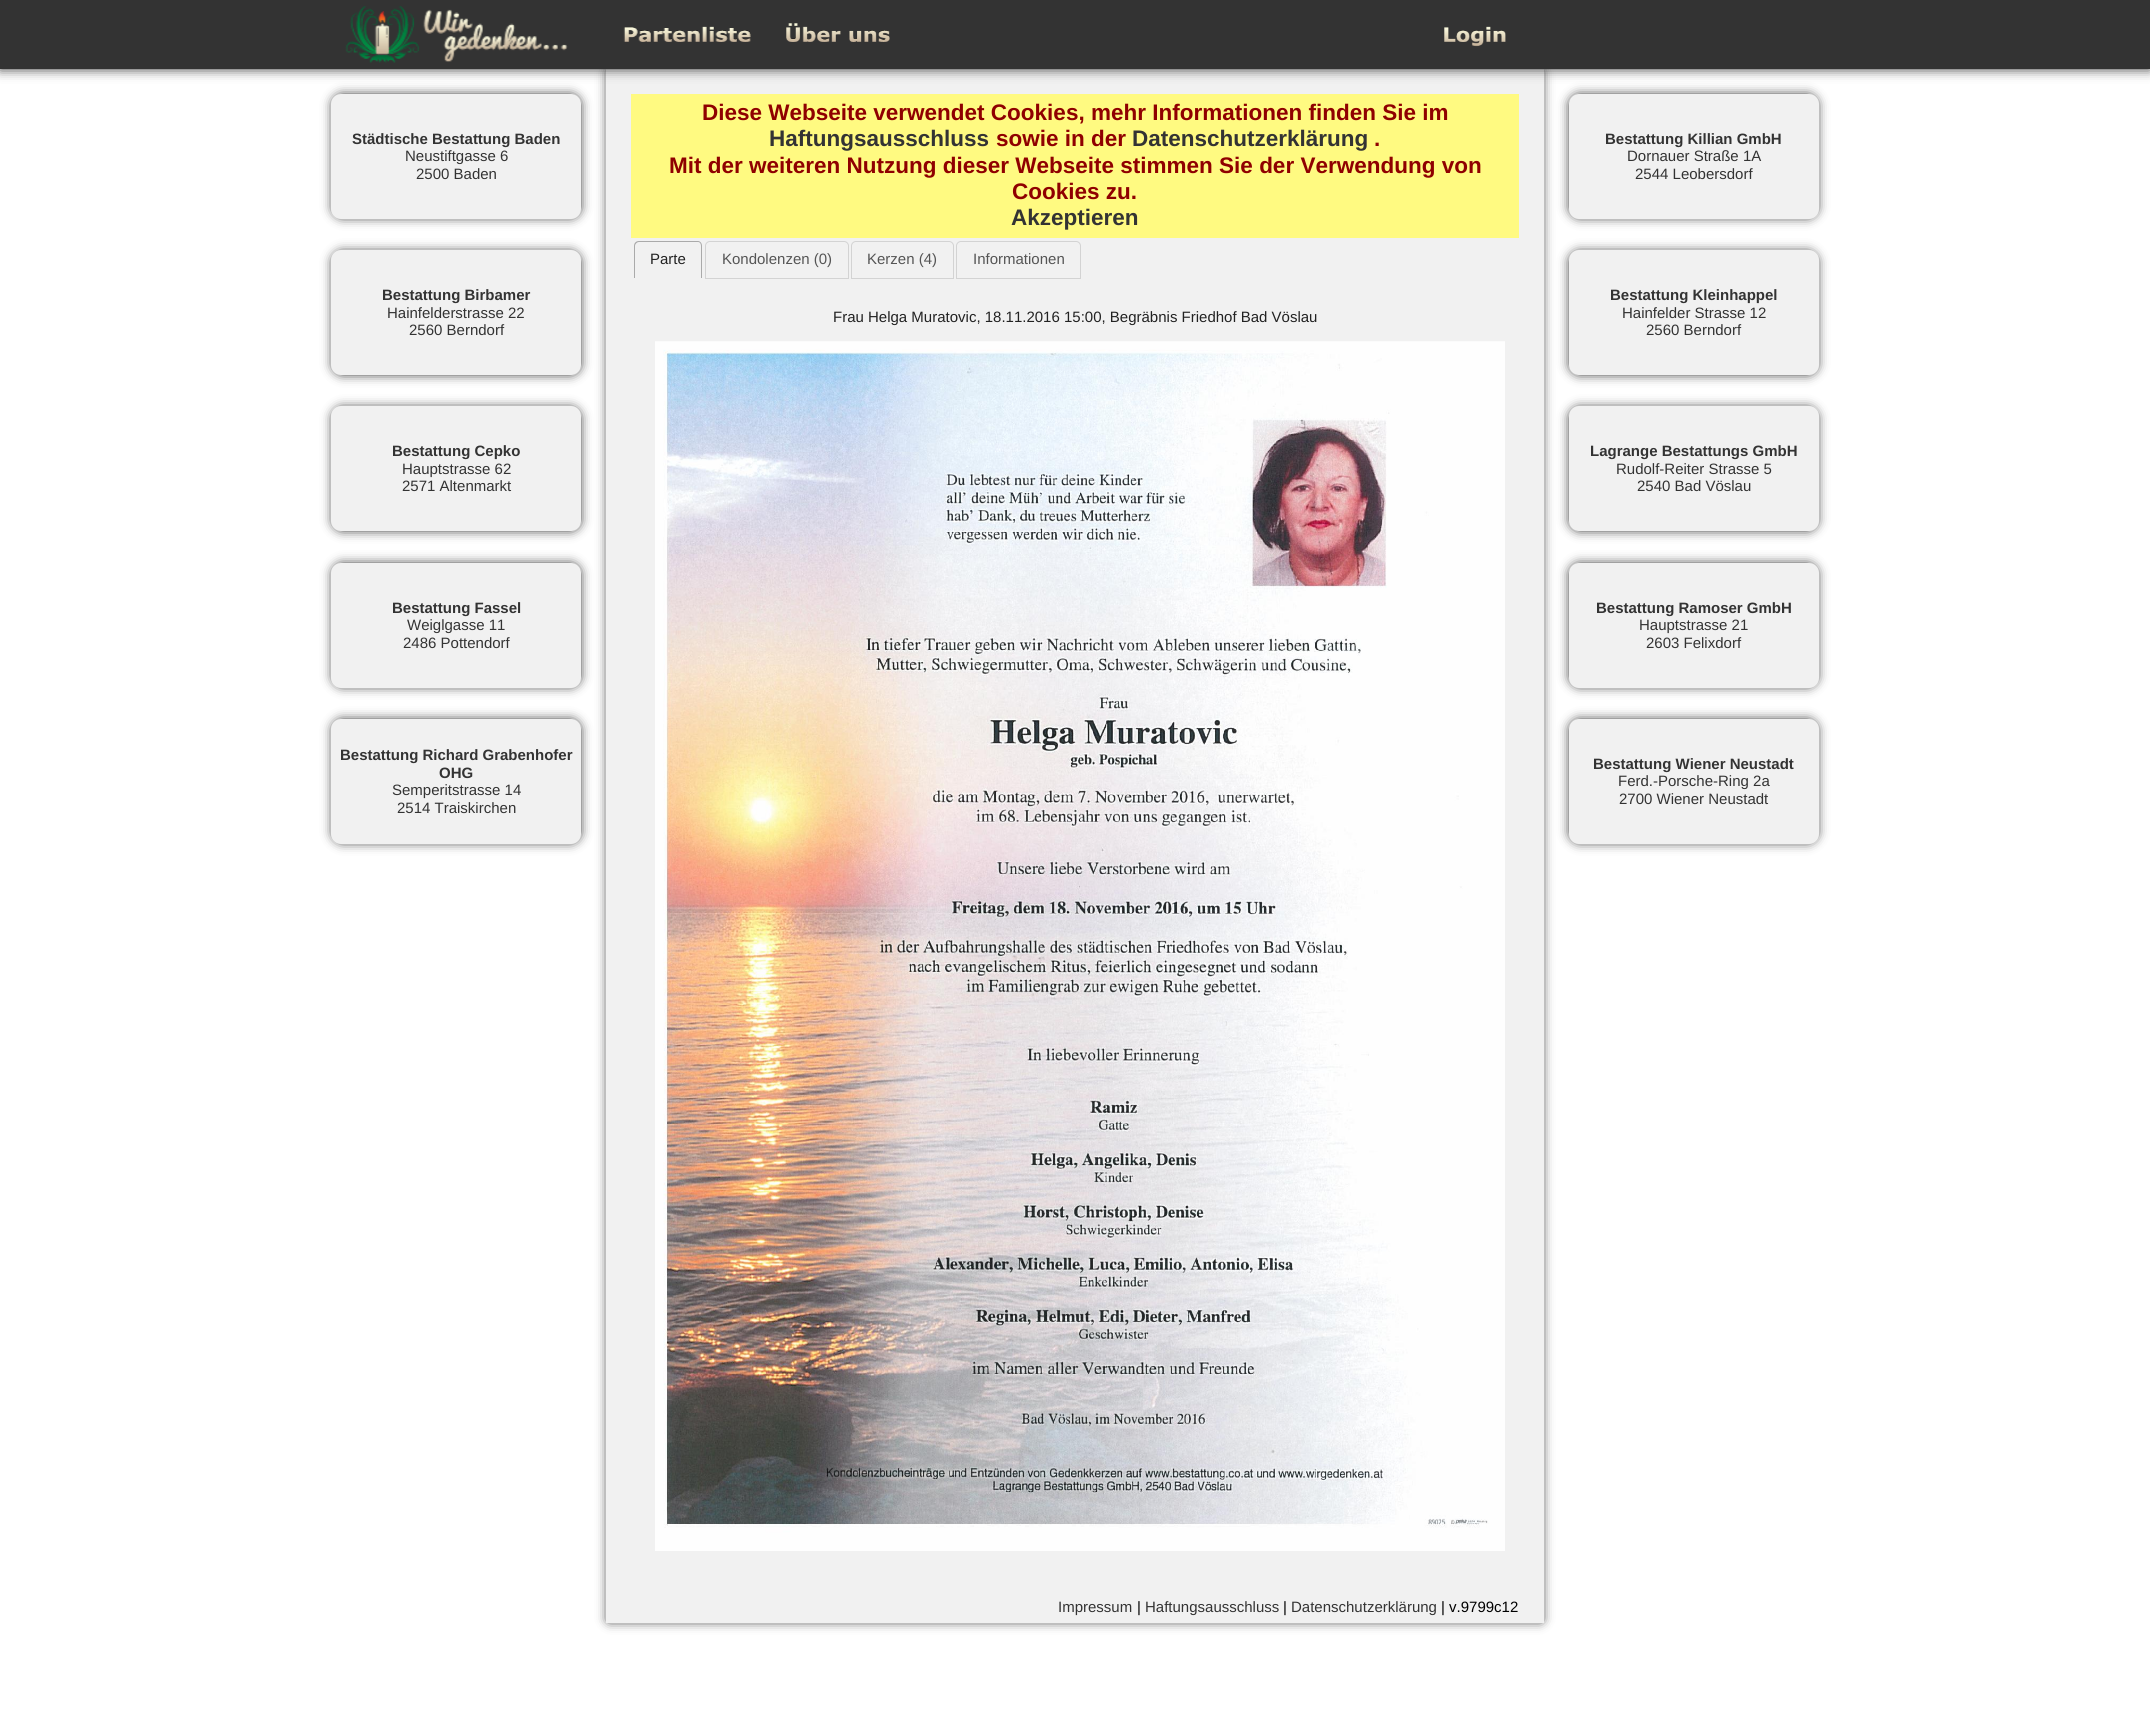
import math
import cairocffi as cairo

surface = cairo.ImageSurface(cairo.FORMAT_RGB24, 2150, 1720)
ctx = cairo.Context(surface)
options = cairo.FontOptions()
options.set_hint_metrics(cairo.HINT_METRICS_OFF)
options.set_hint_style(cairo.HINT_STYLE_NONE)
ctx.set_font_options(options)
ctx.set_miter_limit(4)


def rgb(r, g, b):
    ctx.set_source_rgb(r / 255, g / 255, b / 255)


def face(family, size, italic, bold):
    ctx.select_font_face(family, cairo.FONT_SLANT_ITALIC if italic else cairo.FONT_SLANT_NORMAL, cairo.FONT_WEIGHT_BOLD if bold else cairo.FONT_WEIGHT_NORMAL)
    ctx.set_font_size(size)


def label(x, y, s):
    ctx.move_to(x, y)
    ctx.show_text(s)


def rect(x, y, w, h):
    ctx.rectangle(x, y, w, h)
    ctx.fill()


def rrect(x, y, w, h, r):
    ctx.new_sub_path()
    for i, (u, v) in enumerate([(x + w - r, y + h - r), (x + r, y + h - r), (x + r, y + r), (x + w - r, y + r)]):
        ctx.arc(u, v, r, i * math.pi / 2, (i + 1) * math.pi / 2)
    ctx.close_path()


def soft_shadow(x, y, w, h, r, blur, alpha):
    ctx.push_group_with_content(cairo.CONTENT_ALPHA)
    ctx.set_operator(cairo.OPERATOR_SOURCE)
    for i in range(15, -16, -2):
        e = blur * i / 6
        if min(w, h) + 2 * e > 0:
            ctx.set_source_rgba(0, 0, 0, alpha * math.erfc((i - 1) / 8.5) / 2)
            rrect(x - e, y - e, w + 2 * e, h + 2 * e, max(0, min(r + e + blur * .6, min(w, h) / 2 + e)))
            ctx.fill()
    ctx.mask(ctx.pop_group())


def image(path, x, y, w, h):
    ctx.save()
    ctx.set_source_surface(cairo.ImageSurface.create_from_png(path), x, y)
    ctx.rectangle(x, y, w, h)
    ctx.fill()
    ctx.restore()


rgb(255, 255, 255)
ctx.paint()
rgb(0, 0, 0)
soft_shadow(609, 71, 932, 1549, 0, 6, 1)
rgb(241, 241, 241)
rect(606, 69, 938, 1554)
rgb(51, 51, 51)
soft_shadow(0, 0, 2150, 69, 0, 6, 1)
rgb(51, 51, 51)
rect(0, 0, 2150, 69)
image('image0.png', 345, 6, 223, 57)
image('image1.png', 623, 26, 128, 16)
image('image2.png', 786, 23, 104, 19)
image('image3.png', 1444, 26, 62, 21)
rgb(255, 250, 129)
rect(631, 94, 888, 144)
face('Liberation Sans', 22.5, 0, 1)
rgb(143, 0, 0)
label(702, 120, 'Diese Webseite verwendet Cookies, mehr Informationen finden Sie im')
rgb(51, 51, 51)
label(769, 146, 'Haftungsausschluss')
rgb(143, 0, 0)
label(996, 146, 'sowie in der')
rgb(51, 51, 51)
label(1132, 146, 'Datenschutzerklärung')
rgb(143, 0, 0)
label(1374, 146, '.')
label(669, 173, 'Mit der weiteren Nutzung dieser Webseite stimmen Sie der Verwendung von')
label(1012, 199, 'Cookies zu.')
rgb(51, 51, 51)
label(1011, 225, 'Akzeptieren')
rgb(170, 170, 170)
ctx.set_fill_rule(cairo.FILL_RULE_EVEN_ODD)
ctx.new_path()
ctx.move_to(639, 241)
ctx.line_to(698, 241)
ctx.curve_to(700, 241, 702, 243, 702, 246)
ctx.line_to(702, 278)
ctx.line_to(634, 278)
ctx.line_to(634, 246)
ctx.curve_to(634, 243, 636, 241, 639, 241)
ctx.close_path()
ctx.move_to(639, 242)
ctx.line_to(698, 242)
ctx.curve_to(700, 242, 701, 244, 701, 246)
ctx.line_to(701, 278)
ctx.line_to(635, 278)
ctx.line_to(635, 246)
ctx.curve_to(635, 244, 637, 242, 639, 242)
ctx.close_path()
ctx.fill()
face('Liberation Sans', 15, 0, 0)
rgb(34, 34, 34)
label(650, 264, 'Parte')
ctx.new_path()
ctx.move_to(710, 241.5)
ctx.line_to(844, 241.5)
ctx.curve_to(846.5, 241.5, 848.5, 243.5, 848.5, 246)
ctx.line_to(848.5, 278.5)
ctx.line_to(705.5, 278.5)
ctx.line_to(705.5, 246)
ctx.curve_to(705.5, 243.5, 707.5, 241.5, 710, 241.5)
ctx.close_path()
rgb(211, 211, 211)
ctx.set_line_width(1)
ctx.stroke()
rgb(85, 85, 85)
label(722, 264, 'Kondolenzen (0)')
ctx.new_path()
ctx.move_to(856, 241.5)
ctx.line_to(949, 241.5)
ctx.curve_to(951.5, 241.5, 953.5, 243.5, 953.5, 246)
ctx.line_to(953.5, 278.5)
ctx.line_to(851.5, 278.5)
ctx.line_to(851.5, 246)
ctx.curve_to(851.5, 243.5, 853.5, 241.5, 856, 241.5)
ctx.close_path()
rgb(211, 211, 211)
ctx.stroke()
rgb(85, 85, 85)
label(867, 264, 'Kerzen (4)')
ctx.new_path()
ctx.move_to(961, 241.5)
ctx.line_to(1076, 241.5)
ctx.curve_to(1078.5, 241.5, 1080.5, 243.5, 1080.5, 246)
ctx.line_to(1080.5, 278.5)
ctx.line_to(956.5, 278.5)
ctx.line_to(956.5, 246)
ctx.curve_to(956.5, 243.5, 958.5, 241.5, 961, 241.5)
ctx.close_path()
rgb(211, 211, 211)
ctx.stroke()
rgb(85, 85, 85)
label(973, 264, 'Informationen')
rgb(34, 34, 34)
label(833, 322, 'Frau Helga Muratovic, 18.11.2016 15:00, Begräbnis Friedhof Bad Vöslau')
image('image4.png', 655, 341, 850, 1210)
rgb(51, 51, 51)
label(1058, 1612, 'Impressum')
rgb(0, 0, 0)
label(1137, 1612, '|')
rgb(51, 51, 51)
label(1145, 1612, 'Haftungsausschluss')
rgb(0, 0, 0)
label(1283, 1612, '|')
rgb(51, 51, 51)
label(1291, 1612, 'Datenschutzerklärung')
rgb(0, 0, 0)
label(1441, 1612, '| v.9799c12')
rgb(0, 0, 0)
soft_shadow(334, 96, 245, 120, 8, 6, 1)
rgb(241, 241, 241)
rrect(331, 94, 250, 125, 10)
ctx.fill()
face('Liberation Sans', 15, 0, 1)
rgb(51, 51, 51)
label(352, 144, 'Städtische Bestattung Baden')
face('Liberation Sans', 15, 0, 0)
label(405, 161, 'Neustiftgasse 6')
label(416, 179, '2500 Baden')
rgb(0, 0, 0)
soft_shadow(334, 253, 245, 120, 8, 6, 1)
rgb(241, 241, 241)
rrect(331, 250, 250, 125, 10)
ctx.fill()
face('Liberation Sans', 15, 0, 1)
rgb(51, 51, 51)
label(382, 300, 'Bestattung Birbamer')
face('Liberation Sans', 15, 0, 0)
label(387, 318, 'Hainfelderstrasse 22')
label(409, 335, '2560 Berndorf')
rgb(0, 0, 0)
soft_shadow(334, 409, 245, 120, 8, 6, 1)
rgb(241, 241, 241)
rrect(331, 406, 250, 125, 10)
ctx.fill()
face('Liberation Sans', 15, 0, 1)
rgb(51, 51, 51)
label(392, 456, 'Bestattung Cepko')
face('Liberation Sans', 15, 0, 0)
label(402, 474, 'Hauptstrasse 62')
label(402, 491, '2571 Altenmarkt')
rgb(0, 0, 0)
soft_shadow(334, 565, 245, 120, 8, 6, 1)
rgb(241, 241, 241)
rrect(331, 563, 250, 125, 10)
ctx.fill()
face('Liberation Sans', 15, 0, 1)
rgb(51, 51, 51)
label(392, 613, 'Bestattung Fassel')
face('Liberation Sans', 15, 0, 0)
label(407, 630, 'Weiglgasse 11')
label(403, 648, '2486 Pottendorf')
rgb(0, 0, 0)
soft_shadow(334, 721, 245, 120, 8, 6, 1)
rgb(241, 241, 241)
rrect(331, 719, 250, 125, 10)
ctx.fill()
face('Liberation Sans', 15, 0, 1)
rgb(51, 51, 51)
label(340, 760, 'Bestattung Richard Grabenhofer')
label(439, 778, 'OHG')
face('Liberation Sans', 15, 0, 0)
label(392, 795, 'Semperitstrasse 14')
label(397, 813, '2514 Traiskirchen')
rgb(0, 0, 0)
soft_shadow(1571, 96, 245, 120, 8, 6, 1)
rgb(241, 241, 241)
rrect(1569, 94, 250, 125, 10)
ctx.fill()
face('Liberation Sans', 15, 0, 1)
rgb(51, 51, 51)
label(1605, 144, 'Bestattung Killian GmbH')
face('Liberation Sans', 15, 0, 0)
label(1627, 161, 'Dornauer Straße 1A')
label(1635, 179, '2544 Leobersdorf')
rgb(0, 0, 0)
soft_shadow(1571, 253, 245, 120, 8, 6, 1)
rgb(241, 241, 241)
rrect(1569, 250, 250, 125, 10)
ctx.fill()
face('Liberation Sans', 15, 0, 1)
rgb(51, 51, 51)
label(1610, 300, 'Bestattung Kleinhappel')
face('Liberation Sans', 15, 0, 0)
label(1622, 318, 'Hainfelder Strasse 12')
label(1646, 335, '2560 Berndorf')
rgb(0, 0, 0)
soft_shadow(1571, 409, 245, 120, 8, 6, 1)
rgb(241, 241, 241)
rrect(1569, 406, 250, 125, 10)
ctx.fill()
face('Liberation Sans', 15, 0, 1)
rgb(51, 51, 51)
label(1590, 456, 'Lagrange Bestattungs GmbH')
face('Liberation Sans', 15, 0, 0)
label(1616, 474, 'Rudolf-Reiter Strasse 5')
label(1637, 491, '2540 Bad Vöslau')
rgb(0, 0, 0)
soft_shadow(1571, 565, 245, 120, 8, 6, 1)
rgb(241, 241, 241)
rrect(1569, 563, 250, 125, 10)
ctx.fill()
face('Liberation Sans', 15, 0, 1)
rgb(51, 51, 51)
label(1596, 613, 'Bestattung Ramoser GmbH')
face('Liberation Sans', 15, 0, 0)
label(1639, 630, 'Hauptstrasse 21')
label(1646, 648, '2603 Felixdorf')
rgb(0, 0, 0)
soft_shadow(1571, 721, 245, 120, 8, 6, 1)
rgb(241, 241, 241)
rrect(1569, 719, 250, 125, 10)
ctx.fill()
face('Liberation Sans', 15, 0, 1)
rgb(51, 51, 51)
label(1593, 769, 'Bestattung Wiener Neustadt')
face('Liberation Sans', 15, 0, 0)
label(1618, 786, 'Ferd.-Porsche-Ring 2a')
label(1619, 804, '2700 Wiener Neustadt')
surface.write_to_png('render.png')
